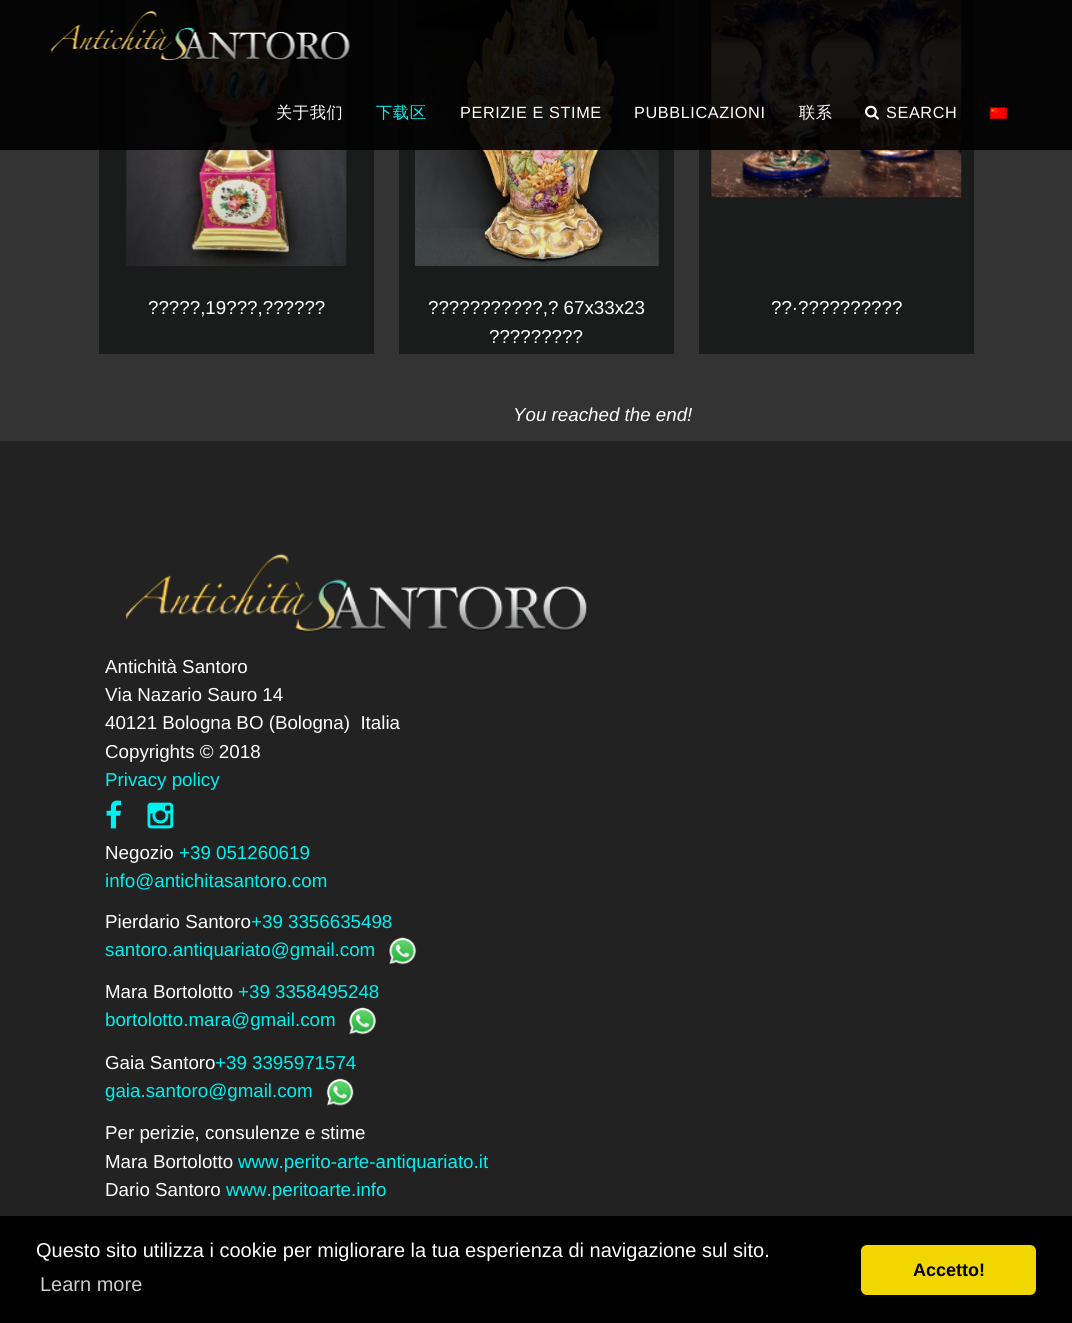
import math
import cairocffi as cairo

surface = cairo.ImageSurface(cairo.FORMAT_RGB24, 1072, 1323)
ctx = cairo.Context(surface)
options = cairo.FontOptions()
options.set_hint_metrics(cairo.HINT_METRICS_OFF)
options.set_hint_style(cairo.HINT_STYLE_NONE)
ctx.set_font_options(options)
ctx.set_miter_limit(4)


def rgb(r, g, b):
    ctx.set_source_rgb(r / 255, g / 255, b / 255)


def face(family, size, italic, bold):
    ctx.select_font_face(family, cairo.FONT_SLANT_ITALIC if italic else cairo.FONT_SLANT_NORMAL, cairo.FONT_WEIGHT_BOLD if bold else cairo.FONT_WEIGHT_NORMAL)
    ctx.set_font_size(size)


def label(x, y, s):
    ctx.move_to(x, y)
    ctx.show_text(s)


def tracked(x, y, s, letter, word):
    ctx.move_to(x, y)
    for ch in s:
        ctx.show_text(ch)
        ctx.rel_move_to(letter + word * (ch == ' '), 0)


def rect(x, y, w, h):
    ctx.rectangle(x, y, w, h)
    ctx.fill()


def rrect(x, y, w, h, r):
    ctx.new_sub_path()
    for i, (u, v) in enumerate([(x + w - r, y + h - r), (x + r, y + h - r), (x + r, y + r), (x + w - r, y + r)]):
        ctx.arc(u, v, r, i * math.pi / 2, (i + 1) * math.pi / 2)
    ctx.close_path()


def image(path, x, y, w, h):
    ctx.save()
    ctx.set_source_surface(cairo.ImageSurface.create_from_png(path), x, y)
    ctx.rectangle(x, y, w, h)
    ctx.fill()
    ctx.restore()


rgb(34, 34, 34)
ctx.paint()
rgb(51, 51, 51)
rect(0, 0, 1072, 441)
rgb(26, 27, 27)
rect(99, 0, 275, 354)
image('image3.png', 126, 0, 221, 266)
rect(399, 0, 275, 354)
image('image4.png', 415, 0, 244, 266)
rect(699, 0, 275, 354)
image('image5.png', 711, 0, 251, 198)
ctx.set_source_rgba(0, 0, 0, 0.05)
ctx.new_path()
ctx.move_to(0, 150)
ctx.line_to(0, 151)
ctx.line_to(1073, 151)
ctx.line_to(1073, 1)
ctx.line_to(1072, 1)
ctx.line_to(1072, 150)
ctx.close_path()
ctx.fill()
ctx.set_source_rgba(0, 0, 0, 0.9)
rect(0, 0, 1072, 150)
image('image0.png', 50, 11, 300, 50)
face('WenQuanYi Zen Hei Medium', 16.25, 0, 0)
rgb(255, 255, 255)
tracked(276, 118, '关于我们', 0.6, 0)
rgb(0, 239, 239)
tracked(376, 118, '下载区', 0.6, 0)
face('Liberation Sans', 16.25, 0, 0)
rgb(255, 255, 255)
tracked(460, 118, 'PERIZIE E STIME', 0.6, 0)
tracked(634, 118, 'PUBBLICAZIONI', 0.6, 0)
face('WenQuanYi Zen Hei Medium', 16.25, 0, 0)
tracked(799, 118, '联系', 0.6, 0)
image('image1.png', 865, 105, 14, 15)
face('Liberation Sans', 16.25, 0, 0)
tracked(886, 118, 'SEARCH', 0.6, 0)
image('image2.png', 989, 107, 18, 12)
face('Liberation Sans', 18.75, 0, 0)
label(148, 314, '?????,19???,??????')
label(428, 314, '???????????,? 67x33x23')
label(489, 343, '?????????')
label(771, 314, '??·??????????')
face('Liberation Sans', 18.75, 1, 0)
label(513, 421, 'You reached the end!')
image('image6.png', 125, 553, 463, 80)
face('Liberation Sans', 18.75, 0, 0)
label(105, 673, 'Antichità Santoro')
label(105, 701, 'Via Nazario Sauro 14')
label(105, 729, '40121 Bologna BO (Bologna)  Italia')
label(105, 758, 'Copyrights © 2018')
rgb(0, 239, 239)
label(105, 786, 'Privacy policy')
image('image7.png', 106, 800, 16, 29)
image('image8.png', 147, 802, 27, 27)
rgb(255, 255, 255)
label(105, 859, 'Negozio')
rgb(0, 239, 239)
label(179, 859, '+39 051260619')
label(105, 887, 'info@antichitasantoro.com')
rgb(255, 255, 255)
label(105, 928, 'Pierdario Santoro')
rgb(0, 239, 239)
label(251, 928, '+39 3356635498')
label(105, 956, 'santoro.antiquariato@gmail.com')
image('image9.png', 389, 937, 28, 28)
rgb(255, 255, 255)
label(105, 998, 'Mara Bortolotto')
rgb(0, 239, 239)
label(238, 998, '+39 3358495248')
label(105, 1026, 'bortolotto.mara@gmail.com')
image('image9.png', 349, 1007, 28, 28)
rgb(255, 255, 255)
label(105, 1069, 'Gaia Santoro')
rgb(0, 239, 239)
label(215, 1069, '+39 3395971574')
label(105, 1097, 'gaia.santoro@gmail.com')
image('image10.png', 326, 1078, 28, 28)
rgb(255, 255, 255)
label(105, 1139, 'Per perizie, consulenze e stime')
label(105, 1168, 'Mara Bortolotto')
rgb(0, 239, 239)
label(238, 1168, 'www.perito-arte-antiquariato.it')
rgb(255, 255, 255)
label(105, 1196, 'Dario Santoro')
rgb(0, 239, 239)
label(226, 1196, 'www.peritoarte.info')
rgb(0, 0, 0)
rect(0, 1216, 1072, 107)
face('Liberation Sans', 20, 0, 0)
rgb(255, 255, 255)
label(36, 1257, 'Questo sito utilizza i cookie per migliorare la tua esperienza di navigazione sul sito.')
rgb(204, 204, 204)
label(40, 1291, 'Learn more')
rgb(241, 214, 0)
rrect(861, 1245, 175, 50, 6)
ctx.fill()
face('Liberation Sans', 18, 0, 1)
rgb(0, 0, 0)
label(913, 1276, 'Accetto!')
surface.write_to_png('render.png')
